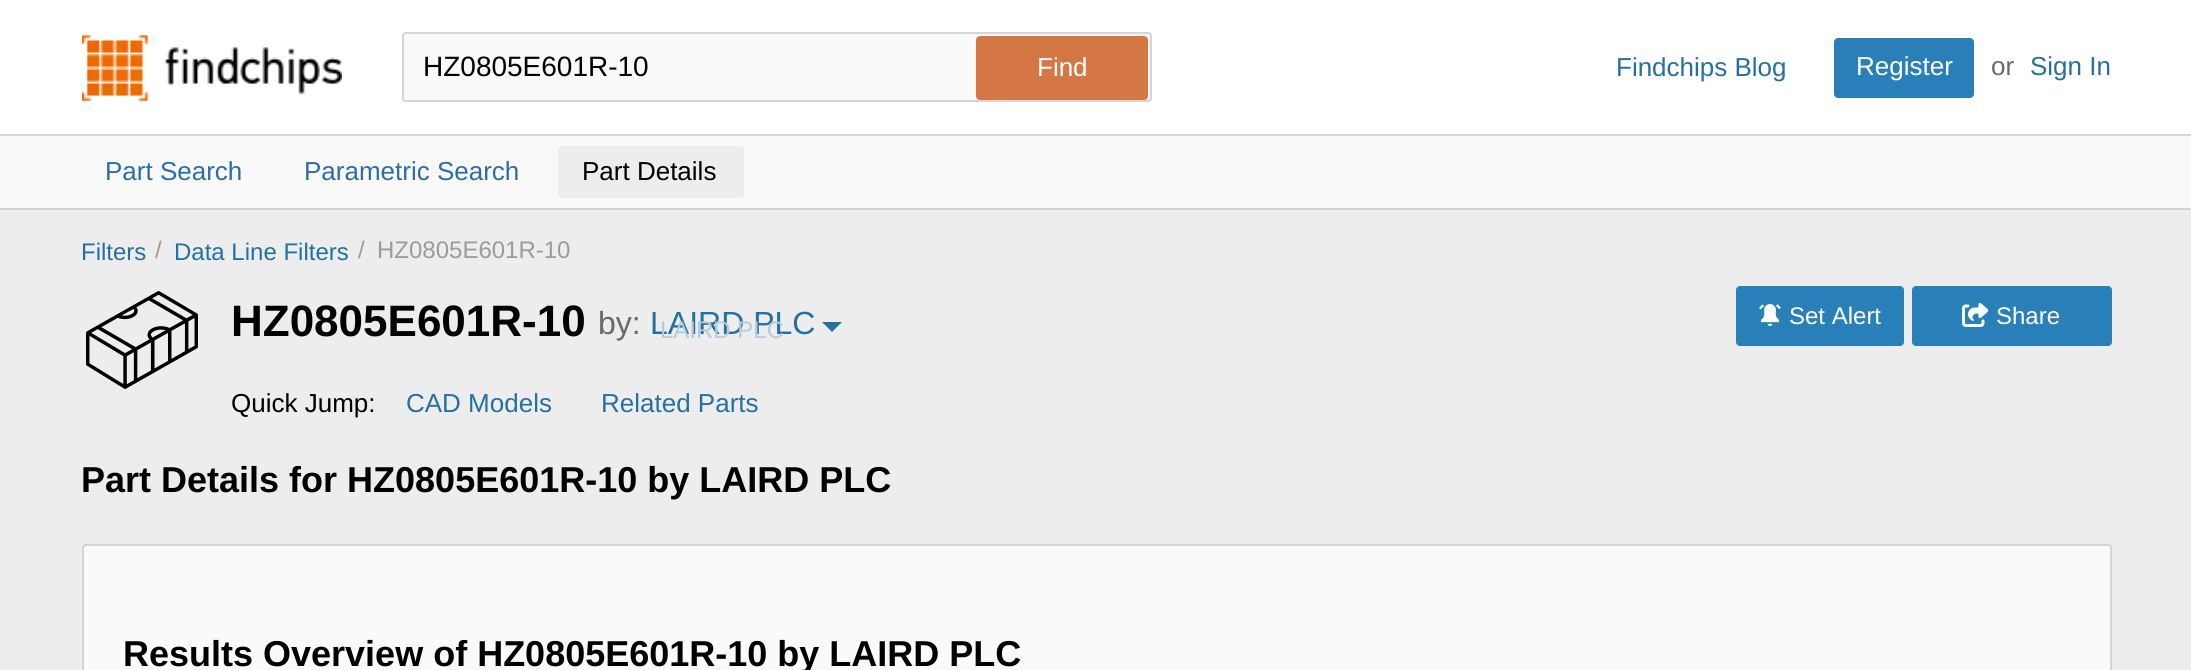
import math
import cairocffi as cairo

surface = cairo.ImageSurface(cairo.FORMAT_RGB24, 2191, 670)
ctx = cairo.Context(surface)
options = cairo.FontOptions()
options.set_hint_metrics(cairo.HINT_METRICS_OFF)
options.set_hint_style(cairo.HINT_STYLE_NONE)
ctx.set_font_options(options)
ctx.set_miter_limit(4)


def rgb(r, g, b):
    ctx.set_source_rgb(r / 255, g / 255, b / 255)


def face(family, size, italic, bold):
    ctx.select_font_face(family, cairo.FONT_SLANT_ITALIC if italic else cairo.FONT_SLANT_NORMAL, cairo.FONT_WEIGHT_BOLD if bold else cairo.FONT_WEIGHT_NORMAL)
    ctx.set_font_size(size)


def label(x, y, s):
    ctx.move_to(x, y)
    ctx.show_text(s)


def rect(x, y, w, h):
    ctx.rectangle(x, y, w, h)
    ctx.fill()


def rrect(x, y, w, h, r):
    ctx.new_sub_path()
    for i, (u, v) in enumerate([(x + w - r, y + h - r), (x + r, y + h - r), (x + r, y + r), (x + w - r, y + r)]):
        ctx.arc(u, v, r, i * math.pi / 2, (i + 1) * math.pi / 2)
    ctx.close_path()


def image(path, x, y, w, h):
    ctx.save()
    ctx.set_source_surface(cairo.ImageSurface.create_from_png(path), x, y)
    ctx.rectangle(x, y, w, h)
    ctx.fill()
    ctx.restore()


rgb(237, 237, 237)
ctx.paint()
rgb(255, 255, 255)
rect(0, 0, 2191, 134)
rgb(212, 212, 212)
rect(0, 208, 2191, 2)
image('image0.png', 82, 35, 260, 67)
rrect(403, 33, 748, 68, 3)
ctx.stroke()
rgb(249, 249, 249)
rrect(404, 34, 746, 66, 4)
ctx.fill()
face('Liberation Sans', 28, 0, 0)
rgb(0, 0, 0)
label(423, 76, 'HZ0805E601R-10')
rgb(213, 119, 68)
rrect(977, 37, 170, 62, 3)
ctx.fill_preserve()
ctx.stroke()
face('Liberation Sans', 26, 0, 0)
rgb(255, 255, 255)
label(1037, 76, 'Find')
rgb(36, 112, 163)
label(1616, 76, 'Findchips Blog')
rgb(41, 128, 185)
rrect(1835, 39, 138, 58, 3)
ctx.fill_preserve()
ctx.stroke()
rgb(255, 255, 255)
label(1856, 75, 'Register')
rgb(105, 105, 105)
label(1991, 75, 'or')
rgb(36, 112, 163)
label(2030, 75, 'Sign In')
rgb(249, 249, 249)
rect(0, 136, 2191, 72)
rgb(212, 212, 212)
rect(0, 134, 2191, 2)
rgb(44, 109, 169)
label(105, 180, 'Part Search')
label(304, 180, 'Parametric Search')
rgb(237, 237, 237)
rrect(558, 146, 186, 52, 4)
ctx.fill()
rgb(0, 0, 0)
label(582, 180, 'Part Details')
face('Liberation Sans', 24, 0, 0)
rgb(36, 112, 163)
label(81, 260, 'Filters')
rgb(155, 155, 155)
label(155, 258, '/')
rgb(36, 112, 163)
label(174, 260, 'Data Line Filters')
rgb(155, 155, 155)
label(358, 258, '/')
label(377, 258, 'HZ0805E601R-10')
image('image1.png', 86, 291, 112, 98)
face('Liberation Sans', 44, 0, 1)
rgb(0, 0, 0)
label(231, 336, 'HZ0805E601R-10')
face('Liberation Sans', 32, 0, 0)
rgb(105, 105, 105)
label(598, 334, 'by:')
rgb(36, 112, 163)
label(650, 334, 'LAIRD PLC')
face('Liberation Sans', 24, 0, 0)
rgb(182, 203, 217)
label(660, 338, 'LAIRD PLC')
rgb(36, 112, 163)
ctx.new_path()
ctx.move_to(822, 322)
ctx.line_to(842, 322)
ctx.line_to(832, 332)
ctx.close_path()
ctx.fill()
rgb(41, 128, 185)
rrect(1737, 287, 166, 58, 3)
ctx.fill_preserve()
ctx.stroke()
image('image2.png', 1759, 304, 22, 23)
rgb(255, 255, 255)
label(1789, 324, 'Set Alert')
rgb(41, 128, 185)
rrect(1913, 287, 198, 58, 3)
ctx.fill_preserve()
ctx.stroke()
image('image3.png', 1962, 303, 27, 24)
rgb(255, 255, 255)
label(1996, 324, 'Share')
face('Liberation Sans', 26, 0, 0)
rgb(0, 0, 0)
label(231, 412, 'Quick Jump:')
rgb(36, 112, 163)
label(406, 412, 'CAD Models')
label(601, 412, 'Related Parts')
face('Liberation Sans', 36, 0, 1)
rgb(0, 0, 0)
label(81, 492, 'Part Details for HZ0805E601R-10 by LAIRD PLC')
rgb(250, 250, 250)
rrect(83, 545, 2028, 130, 3)
ctx.fill_preserve()
rgb(212, 212, 212)
ctx.stroke()
rgb(0, 0, 0)
label(123, 666, 'Results Overview of HZ0805E601R-10 by LAIRD PLC')
surface.write_to_png('render.png')
